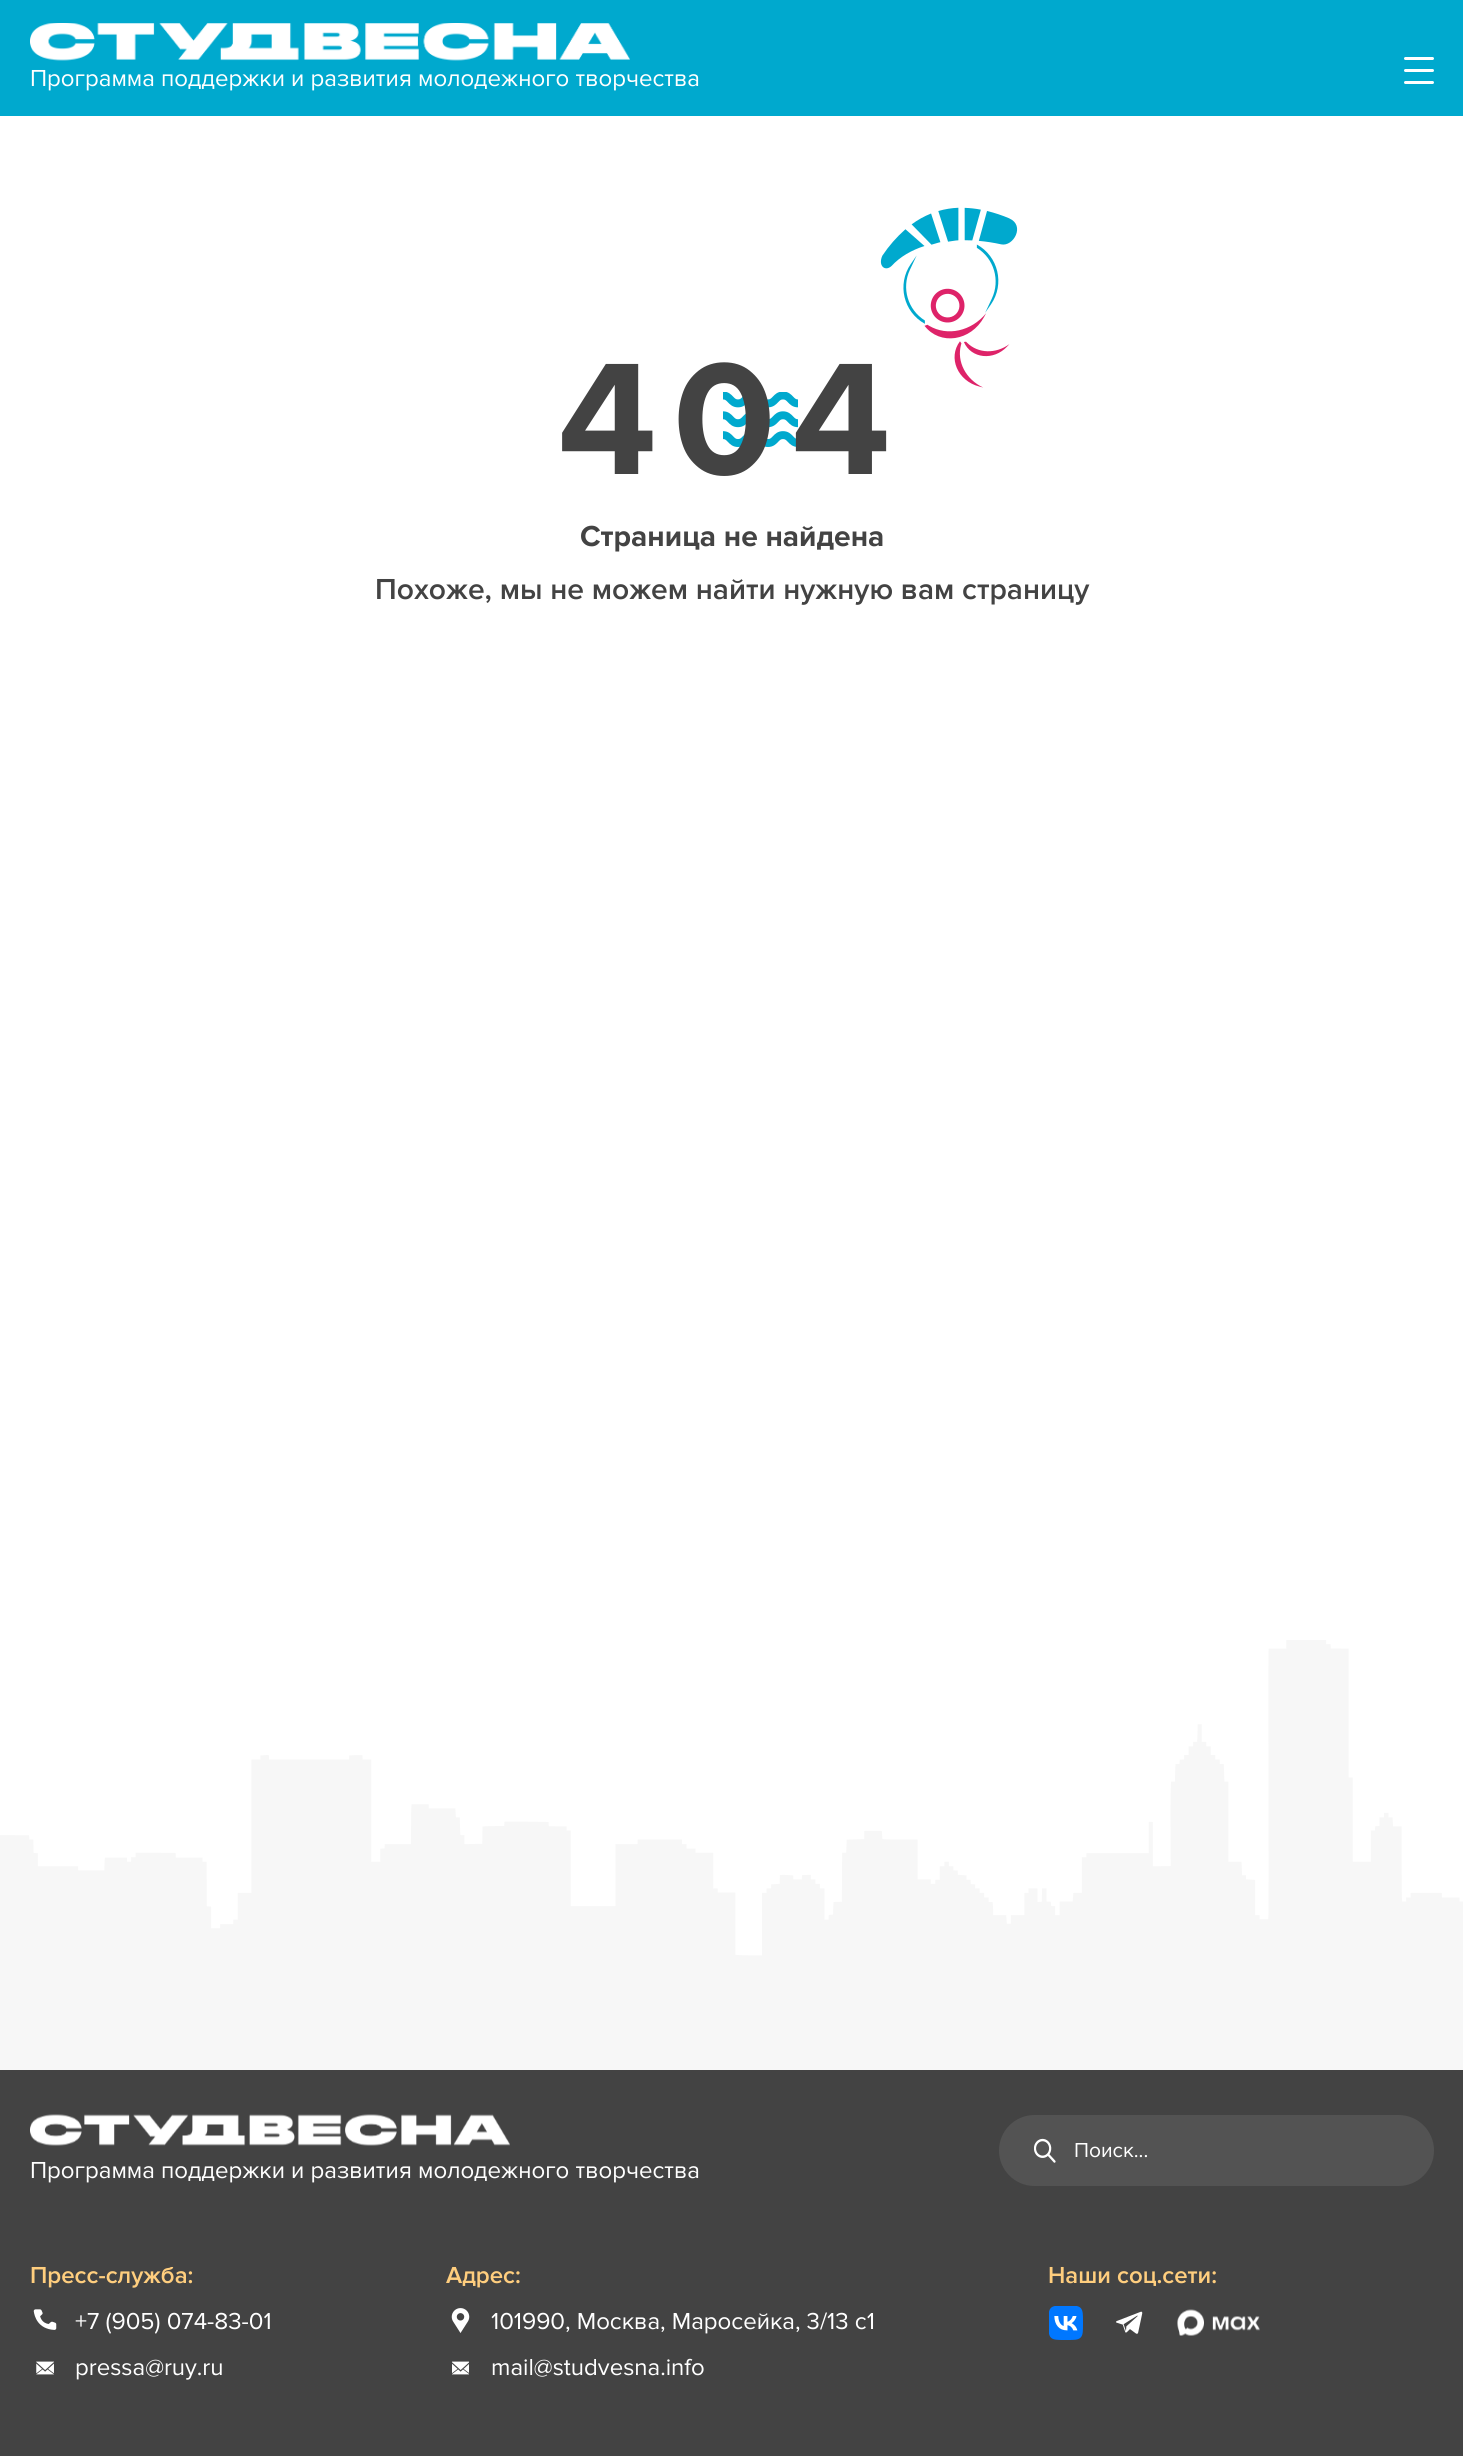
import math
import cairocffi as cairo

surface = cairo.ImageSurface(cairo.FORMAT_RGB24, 1463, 2456)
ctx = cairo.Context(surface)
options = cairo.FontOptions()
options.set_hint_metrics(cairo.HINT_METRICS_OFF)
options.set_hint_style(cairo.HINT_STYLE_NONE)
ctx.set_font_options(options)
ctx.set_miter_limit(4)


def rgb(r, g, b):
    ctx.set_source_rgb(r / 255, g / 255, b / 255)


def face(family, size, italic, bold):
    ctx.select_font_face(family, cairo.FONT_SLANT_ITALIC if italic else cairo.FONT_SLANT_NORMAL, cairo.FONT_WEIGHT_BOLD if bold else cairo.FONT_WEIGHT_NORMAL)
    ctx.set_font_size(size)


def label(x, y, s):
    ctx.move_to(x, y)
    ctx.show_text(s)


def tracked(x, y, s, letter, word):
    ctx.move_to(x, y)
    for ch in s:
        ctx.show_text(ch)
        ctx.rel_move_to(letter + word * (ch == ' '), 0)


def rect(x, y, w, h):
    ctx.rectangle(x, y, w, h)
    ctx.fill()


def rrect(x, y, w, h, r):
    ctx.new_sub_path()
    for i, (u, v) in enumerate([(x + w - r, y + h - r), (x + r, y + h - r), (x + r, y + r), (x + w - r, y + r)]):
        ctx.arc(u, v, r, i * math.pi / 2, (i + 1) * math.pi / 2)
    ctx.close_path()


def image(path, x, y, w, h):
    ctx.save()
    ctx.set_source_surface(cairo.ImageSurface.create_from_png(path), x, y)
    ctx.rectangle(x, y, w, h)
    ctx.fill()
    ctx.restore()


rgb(255, 255, 255)
ctx.paint()
rgb(0, 169, 206)
rect(0, 0, 1463, 116)
image('image0.png', 30, 23, 600, 38)
face('Proxima Nova', 24, 0, 0)
rgb(255, 255, 255)
label(30, 86, 'Программа поддержки и развития молодежного творчества')
rrect(1404, 69, 30, 3, 1.5)
ctx.fill()
rrect(1404, 57, 30, 3, 1.5)
ctx.fill()
rrect(1404, 81, 30, 3, 1.5)
ctx.fill()
image('image2.png', 723, 392, 75, 55)
face('Proxima Nova', 165, 0, 1)
rgb(67, 67, 67)
tracked(558, 474, '404', 16.5, 0)
image('image1.png', 880, 207, 138, 181)
face('Proxima Nova', 30, 0, 1)
label(580, 546, 'Страница не найдена')
face('Proxima Nova SemiBold', 30, 0, 0)
label(375, 599, 'Похоже, мы не можем найти нужную вам страницу')
image('image3.png', 0, 1640, 1463, 430)
rect(0, 2070, 1463, 386)
rgb(83, 83, 83)
rrect(999, 2115, 435, 71, 35.5)
ctx.fill()
image('image4.png', 1034, 2138, 22, 25)
face('Proxima Nova', 21, 0, 0)
rgb(255, 255, 255)
label(1074, 2157, 'Поиск...')
image('image5.png', 30, 2114, 480, 32)
face('Proxima Nova', 24, 0, 0)
label(30, 2178, 'Программа поддержки и развития молодежного творчества')
face('Proxima Nova SemiBold', 24, 0, 0)
rgb(255, 206, 126)
label(30, 2283, 'Пресс-служба:')
image('image6.png', 33, 2309, 24, 21)
face('Proxima Nova', 24, 0, 0)
rgb(255, 255, 255)
label(75, 2329, '+7 (905) 074-83-01')
image('image7.png', 36, 2361, 18, 14)
label(75, 2375, 'pressa@ruy.ru')
face('Proxima Nova SemiBold', 24, 0, 0)
rgb(255, 206, 126)
label(446, 2283, 'Адрес:')
image('image8.png', 451, 2308, 19, 25)
face('Proxima Nova', 24, 0, 0)
rgb(255, 255, 255)
label(491, 2329, '101990, Москва, Маросейка, 3/13 с1')
image('image9.png', 452, 2361, 17, 14)
label(491, 2375, 'mail@studvesna.info')
face('Proxima Nova SemiBold', 24, 0, 0)
rgb(255, 206, 126)
label(1048, 2283, 'Наши соц.сети:')
image('image10.png', 1049, 2306, 34, 34)
image('image11.png', 1116, 2311, 27, 23)
image('image12.png', 1177, 2309, 83, 27)
surface.write_to_png('render.png')
